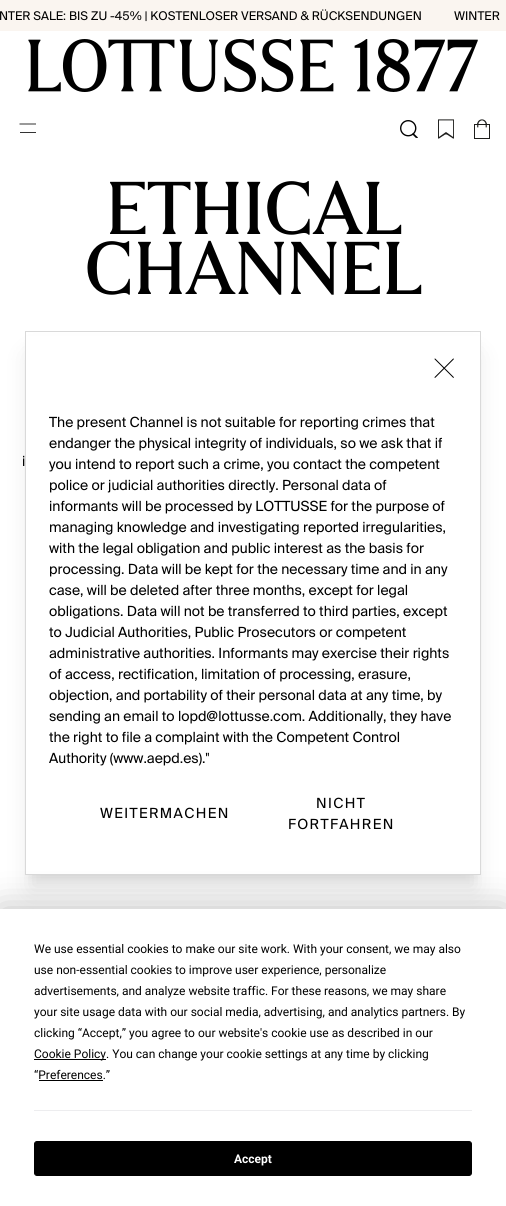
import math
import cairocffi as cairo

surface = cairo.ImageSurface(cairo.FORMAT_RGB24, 506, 1206)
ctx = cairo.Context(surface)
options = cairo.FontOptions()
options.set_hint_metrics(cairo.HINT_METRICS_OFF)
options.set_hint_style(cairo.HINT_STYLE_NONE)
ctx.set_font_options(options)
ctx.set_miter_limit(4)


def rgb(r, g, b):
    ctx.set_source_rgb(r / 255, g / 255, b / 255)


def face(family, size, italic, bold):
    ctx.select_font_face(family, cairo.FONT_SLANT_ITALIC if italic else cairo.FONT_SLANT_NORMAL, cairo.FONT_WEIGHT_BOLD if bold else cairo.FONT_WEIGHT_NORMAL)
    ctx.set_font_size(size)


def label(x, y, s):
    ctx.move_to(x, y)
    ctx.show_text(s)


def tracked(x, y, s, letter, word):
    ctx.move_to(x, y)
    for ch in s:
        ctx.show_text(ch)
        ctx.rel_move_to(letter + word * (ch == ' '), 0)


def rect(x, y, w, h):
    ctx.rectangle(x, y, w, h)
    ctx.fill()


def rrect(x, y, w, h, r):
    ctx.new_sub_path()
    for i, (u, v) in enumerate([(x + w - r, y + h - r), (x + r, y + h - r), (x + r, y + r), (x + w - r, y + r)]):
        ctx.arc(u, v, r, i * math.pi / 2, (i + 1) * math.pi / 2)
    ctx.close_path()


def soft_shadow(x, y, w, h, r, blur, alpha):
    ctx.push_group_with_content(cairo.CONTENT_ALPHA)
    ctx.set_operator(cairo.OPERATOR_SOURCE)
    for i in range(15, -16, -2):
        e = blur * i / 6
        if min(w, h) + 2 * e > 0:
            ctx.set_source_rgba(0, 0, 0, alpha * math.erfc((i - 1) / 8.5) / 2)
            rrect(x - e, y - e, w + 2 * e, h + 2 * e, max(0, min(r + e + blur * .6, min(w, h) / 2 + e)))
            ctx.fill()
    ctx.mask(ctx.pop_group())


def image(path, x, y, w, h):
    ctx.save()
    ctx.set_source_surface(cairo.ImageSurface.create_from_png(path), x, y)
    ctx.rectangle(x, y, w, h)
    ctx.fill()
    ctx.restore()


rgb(255, 255, 255)
ctx.paint()
rgb(250, 245, 240)
rect(0, 0, 506, 31)
face('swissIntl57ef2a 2', 12, 0, 0)
rgb(0, 0, 0)
label(-1, 20, 'NTER SALE: BIS ZU -45% | KOSTENLOSER VERSAND & RÜCKSENDUNGEN')
label(454, 20, 'WINTER')
image('image0.png', 28, 39, 450, 53)
ctx.new_path()
ctx.move_to(19.5, 124)
ctx.line_to(36, 124)
ctx.set_line_width(0.8)
ctx.stroke()
rgb(51, 51, 51)
rect(20, 132, 16, 1)
image('image1.png', 400, 120, 18, 18)
image('image2.png', 438, 119, 16, 20)
image('image3.png', 474, 119, 16, 20)
face('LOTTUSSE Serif', 60, 0, 0)
rgb(0, 0, 0)
tracked(105, 234, 'Ethical', -1.5, 0)
tracked(84, 294, 'channel', -1.5, 0)
face('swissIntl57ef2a', 14, 0, 0)
label(22, 466, 'i')
rgb(0, 0, 0)
soft_shadow(31, 345, 444, 532, 0, 5, 0.1)
soft_shadow(30, 356, 446, 534, 0, 12.5, 0.1)
rgb(255, 255, 255)
rect(26, 336, 454, 538)
ctx.rectangle(25.5, 331.5, 455, 543)
rgb(217, 217, 217)
ctx.set_line_width(1)
ctx.stroke()
image('image4.png', 434, 358, 20, 20)
rgb(0, 0, 0)
label(49, 427, 'The present Channel is not suitable for reporting crimes that')
label(49, 448, 'endanger the physical integrity of individuals, so we ask that if')
label(49, 469, 'you intend to report such a crime, you contact the competent')
label(49, 490, 'police or judicial authorities directly. Personal data of')
label(49, 511, 'informants will be processed by LOTTUSSE for the purpose of')
label(49, 532, 'managing knowledge and investigating reported irregularities,')
label(49, 553, 'with the legal obligation and public interest as the basis for')
label(49, 574, 'processing. Data will be kept for the necessary time and in any')
label(49, 595, 'case, will be deleted after three months, except for legal')
label(49, 616, 'obligations. Data will not be transferred to third parties, except')
label(49, 637, 'to Judicial Authorities, Public Prosecutors or competent')
label(49, 658, 'administrative authorities. Informants may exercise their rights')
label(49, 679, 'of access, rectification, limitation of processing, erasure,')
label(49, 700, 'objection, and portability of their personal data at any time, by')
label(49, 721, 'sending an email to lopd@lottusse.com. Additionally, they have')
label(49, 742, 'the right to file a complaint with the Competent Control')
label(49, 763, 'Authority (www.aepd.es)."')
tracked(100, 818, 'WEITERMACHEN', 1.4, 0)
tracked(316, 808, 'NICHT', 1.4, 0)
tracked(288, 829, 'FORTFAHREN', 1.4, 0)
rgb(0, 0, 0)
soft_shadow(0, 909, 506, 297, 0, 17.5, 0.25)
rgb(255, 255, 255)
rect(0, 909, 506, 297)
face('Roboto', 12, 0, 0)
rgb(0, 0, 0)
label(34, 953, 'We use essential cookies to make our site work. With your consent, we may also')
label(34, 974, 'use non-essential cookies to improve user experience, personalize')
label(34, 995, 'advertisements, and analyze website traffic. For these reasons, we may share')
label(34, 1016, 'your site usage data with our social media, advertising, and analytics partners. By')
label(34, 1037, 'clicking “Accept,” you agree to our website\'s cookie use as described in our')
rect(34, 1059, 72, 1)
label(34, 1058, 'Cookie Policy. You can change your cookie settings at any time by clicking')
label(34, 1079, '“Preferences.”')
rect(39, 1080, 64, 1)
rgb(237, 237, 239)
rect(34, 1110, 438, 1)
rgb(0, 0, 0)
rrect(34.5, 1141.5, 437, 34, 2.5)
ctx.fill_preserve()
ctx.stroke()
face('Roboto', 12, 0, 1)
rgb(255, 255, 255)
label(234, 1163, 'Accept')
surface.write_to_png('render.png')
